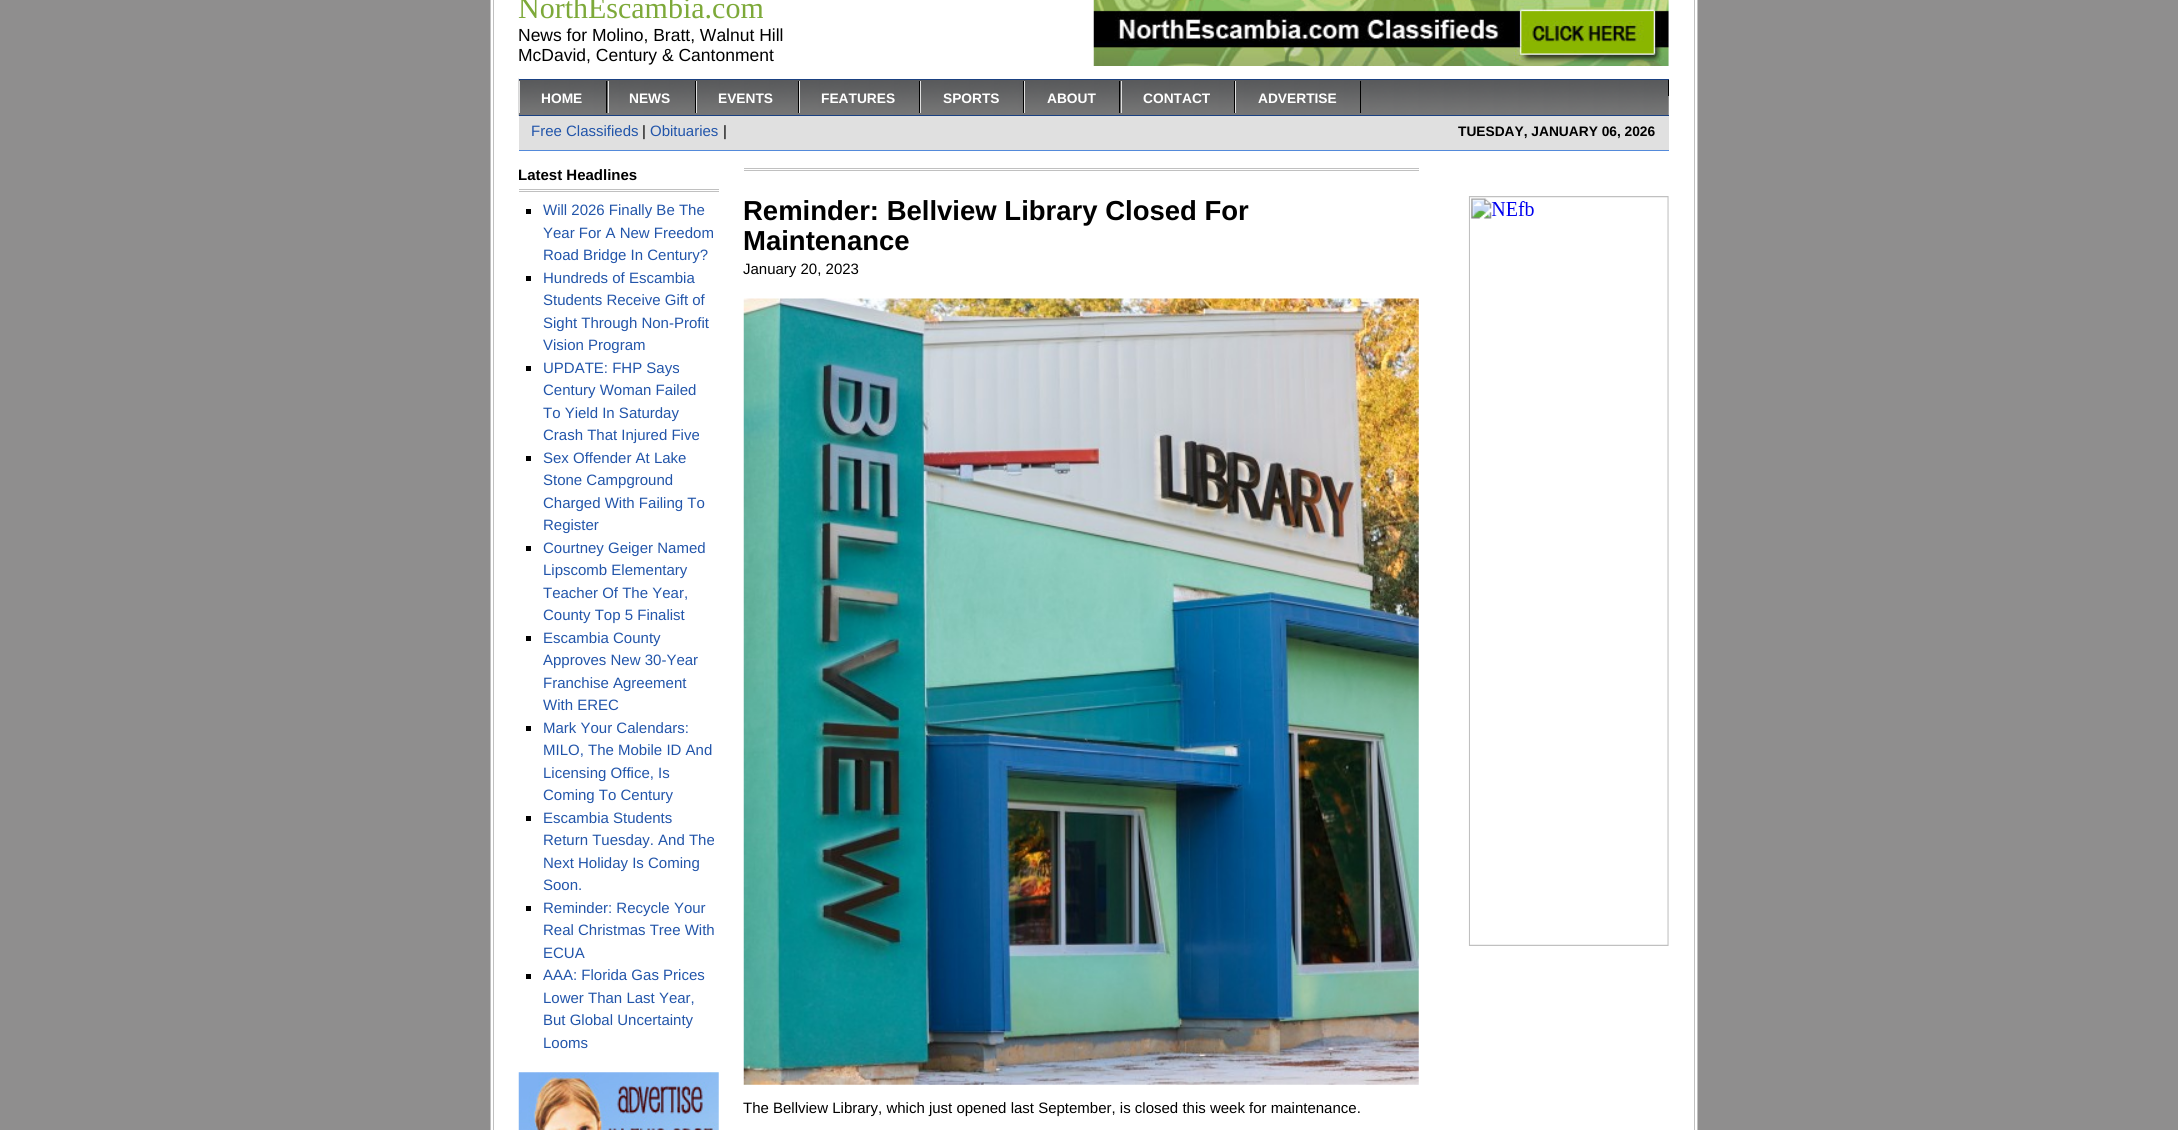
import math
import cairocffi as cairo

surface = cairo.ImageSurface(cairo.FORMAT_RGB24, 2178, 1130)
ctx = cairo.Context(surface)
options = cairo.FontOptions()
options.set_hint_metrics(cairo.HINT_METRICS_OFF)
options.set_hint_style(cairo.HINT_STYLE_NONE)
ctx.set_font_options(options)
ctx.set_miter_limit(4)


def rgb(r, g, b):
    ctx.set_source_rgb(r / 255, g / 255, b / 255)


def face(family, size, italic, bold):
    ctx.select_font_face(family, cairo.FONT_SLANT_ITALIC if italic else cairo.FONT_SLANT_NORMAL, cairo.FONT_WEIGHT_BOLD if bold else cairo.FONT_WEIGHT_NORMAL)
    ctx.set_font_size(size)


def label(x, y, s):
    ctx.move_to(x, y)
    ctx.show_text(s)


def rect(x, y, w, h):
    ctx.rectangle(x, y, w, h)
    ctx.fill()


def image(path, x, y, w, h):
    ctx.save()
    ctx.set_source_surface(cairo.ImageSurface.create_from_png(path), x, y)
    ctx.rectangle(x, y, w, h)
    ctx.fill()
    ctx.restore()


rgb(143, 142, 142)
ctx.paint()
rgb(255, 255, 255)
ctx.rectangle(490.5, -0.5, 1207, 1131)
ctx.fill_preserve()
rgb(192, 192, 192)
ctx.set_line_width(1)
ctx.stroke()
ctx.rectangle(493.5, -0.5, 1201, 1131)
ctx.stroke()
image('image1.png', 518, 78, 1151, 38)
rgb(255, 255, 255)
rect(519, 78, 1150, 1)
face('Liberation Serif', 30, 0, 0)
rgb(125, 169, 57)
label(518, 18, 'NorthEscambia.com')
face('Liberation Sans', 17.5, 0, 0)
rgb(0, 0, 0)
label(518, 41, 'News for Molino, Bratt, Walnut Hill')
label(518, 61, 'McDavid, Century & Cantonment')
image('image0.png', 1093, 0, 576, 66)
rgb(26, 65, 130)
rect(519, 79, 1150, 1)
rect(519, 115, 1150, 1)
rgb(0, 0, 0)
rect(1668, 80, 1, 16)
face('Liberation Sans', 13.75, 0, 1)
rgb(255, 255, 255)
label(541, 103, 'HOME')
rgb(0, 0, 0)
rect(606, 81, 1, 32)
rgb(224, 224, 224)
rect(519, 81, 1, 32)
rgb(255, 255, 255)
label(629, 103, 'NEWS')
rgb(0, 0, 0)
rect(695, 81, 1, 32)
rgb(224, 224, 224)
rect(608, 81, 1, 32)
rgb(255, 255, 255)
label(718, 103, 'EVENTS')
rgb(0, 0, 0)
rect(798, 81, 1, 32)
rgb(224, 224, 224)
rect(696, 81, 1, 32)
rgb(255, 255, 255)
label(821, 103, 'FEATURES')
rgb(0, 0, 0)
rect(919, 81, 1, 32)
rgb(224, 224, 224)
rect(799, 81, 1, 32)
rgb(255, 255, 255)
label(943, 103, 'SPORTS')
rgb(0, 0, 0)
rect(1023, 81, 1, 32)
rgb(224, 224, 224)
rect(920, 81, 1, 32)
rgb(255, 255, 255)
label(1047, 103, 'ABOUT')
rgb(0, 0, 0)
rect(1119, 81, 1, 32)
rgb(224, 224, 224)
rect(1024, 81, 1, 32)
rgb(255, 255, 255)
label(1143, 103, 'CONTACT')
rgb(0, 0, 0)
rect(1234, 81, 1, 32)
rgb(224, 224, 224)
rect(1121, 81, 1, 32)
rgb(255, 255, 255)
label(1258, 103, 'ADVERTISE')
rgb(0, 0, 0)
rect(1360, 81, 1, 32)
rgb(224, 224, 224)
rect(1235, 81, 1, 32)
rect(519, 116, 1150, 34)
rgb(84, 138, 218)
rect(519, 150, 1150, 1)
face('Liberation Sans', 15, 0, 0)
rgb(34, 85, 170)
label(531, 136, 'Free Classifieds')
rgb(0, 0, 0)
label(642, 136, '|')
rgb(34, 85, 170)
label(650, 136, 'Obituaries')
rgb(0, 0, 0)
label(723, 136, '|')
face('Liberation Sans', 13.75, 0, 1)
label(1458, 136, 'TUESDAY, JANUARY 06, 2026')
rgb(192, 192, 192)
rect(519, 189, 200, 1)
rect(519, 191, 200, 1)
face('Liberation Sans', 15, 0, 1)
rgb(0, 0, 0)
label(518, 180, 'Latest Headlines')
rect(526, 209, 5, 5)
face('Liberation Sans', 15, 0, 0)
rgb(34, 85, 170)
label(543, 215, 'Will 2026 Finally Be The')
label(543, 238, 'Year For A New Freedom')
label(543, 260, 'Road Bridge In Century?')
rgb(0, 0, 0)
rect(526, 276, 5, 5)
rgb(34, 85, 170)
label(543, 283, 'Hundreds of Escambia')
label(543, 305, 'Students Receive Gift of')
label(543, 328, 'Sight Through Non-Profit')
label(543, 350, 'Vision Program')
rgb(0, 0, 0)
rect(526, 366, 5, 5)
rgb(34, 85, 170)
label(543, 373, 'UPDATE: FHP Says')
label(543, 395, 'Century Woman Failed')
label(543, 418, 'To Yield In Saturday')
label(543, 440, 'Crash That Injured Five')
rgb(0, 0, 0)
rect(526, 456, 5, 5)
rgb(34, 85, 170)
label(543, 463, 'Sex Offender At Lake')
label(543, 485, 'Stone Campground')
label(543, 508, 'Charged With Failing To')
label(543, 530, 'Register')
rgb(0, 0, 0)
rect(526, 546, 5, 5)
rgb(34, 85, 170)
label(543, 553, 'Courtney Geiger Named')
label(543, 575, 'Lipscomb Elementary')
label(543, 598, 'Teacher Of The Year,')
label(543, 620, 'County Top 5 Finalist')
rgb(0, 0, 0)
rect(526, 636, 5, 5)
rgb(34, 85, 170)
label(543, 643, 'Escambia County')
label(543, 665, 'Approves New 30-Year')
label(543, 688, 'Franchise Agreement')
label(543, 710, 'With EREC')
rgb(0, 0, 0)
rect(526, 726, 5, 5)
rgb(34, 85, 170)
label(543, 733, 'Mark Your Calendars:')
label(543, 755, 'MILO, The Mobile ID And')
label(543, 778, 'Licensing Office, Is')
label(543, 800, 'Coming To Century')
rgb(0, 0, 0)
rect(526, 816, 5, 5)
rgb(34, 85, 170)
label(543, 823, 'Escambia Students')
label(543, 845, 'Return Tuesday. And The')
label(543, 868, 'Next Holiday Is Coming')
label(543, 890, 'Soon.')
rgb(0, 0, 0)
rect(526, 906, 5, 5)
rgb(34, 85, 170)
label(543, 913, 'Reminder: Recycle Your')
label(543, 935, 'Real Christmas Tree With')
label(543, 958, 'ECUA')
rgb(0, 0, 0)
rect(526, 974, 5, 5)
rgb(34, 85, 170)
label(543, 980, 'AAA: Florida Gas Prices')
label(543, 1003, 'Lower Than Last Year,')
label(543, 1025, 'But Global Uncertainty')
label(543, 1048, 'Looms')
image('image2.png', 518, 1072, 201, 58)
rgb(192, 192, 192)
rect(744, 168, 675, 1)
rect(744, 170, 675, 1)
face('Liberation Sans', 27.5, 0, 1)
rgb(0, 0, 0)
label(743, 220, 'Reminder: Bellview Library Closed For')
label(743, 250, 'Maintenance')
face('Liberation Sans', 15, 0, 0)
label(743, 274, 'January 20, 2023')
image('image3.png', 743, 298, 676, 787)
label(743, 1113, 'The Bellview Library, which just opened last September, is closed this week for maintenance.')
image('image4.png', 1468, 196, 201, 750)
surface.write_to_png('render.png')
